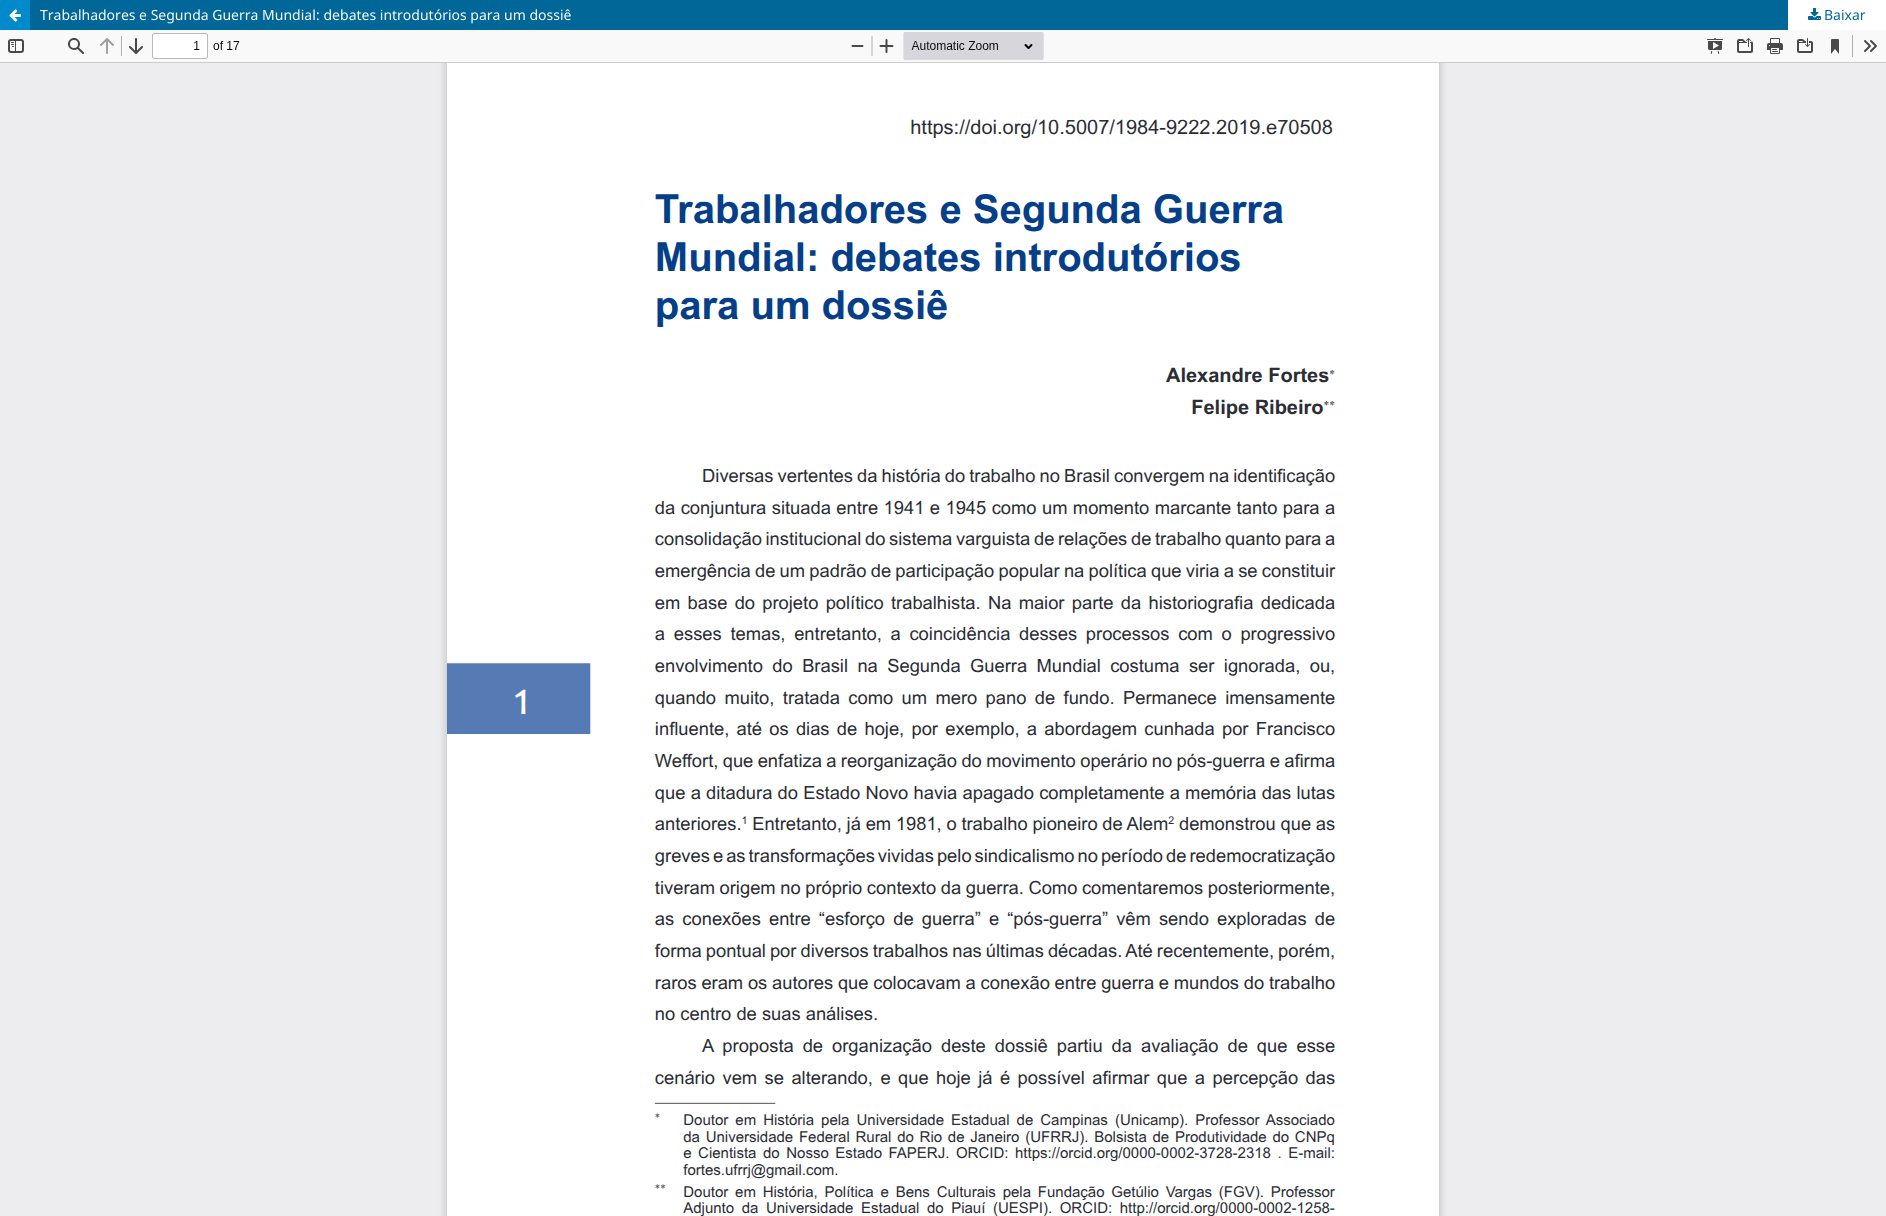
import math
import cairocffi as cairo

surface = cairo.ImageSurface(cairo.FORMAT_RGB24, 1886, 1216)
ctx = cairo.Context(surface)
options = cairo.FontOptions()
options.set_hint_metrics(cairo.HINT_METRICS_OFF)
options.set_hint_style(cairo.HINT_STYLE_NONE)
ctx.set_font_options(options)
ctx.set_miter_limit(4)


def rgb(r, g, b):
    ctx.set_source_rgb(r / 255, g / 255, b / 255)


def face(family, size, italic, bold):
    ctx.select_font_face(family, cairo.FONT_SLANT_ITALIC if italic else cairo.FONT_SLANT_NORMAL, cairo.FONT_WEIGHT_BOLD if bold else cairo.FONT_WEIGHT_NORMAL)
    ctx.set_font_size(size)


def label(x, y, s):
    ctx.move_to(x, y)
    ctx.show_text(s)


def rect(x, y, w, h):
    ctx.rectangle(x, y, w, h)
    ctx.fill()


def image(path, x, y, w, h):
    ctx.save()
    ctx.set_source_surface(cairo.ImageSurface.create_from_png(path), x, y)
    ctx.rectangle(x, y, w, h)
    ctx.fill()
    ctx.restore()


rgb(255, 255, 255)
ctx.paint()
rgb(0, 103, 152)
rect(30, 0, 1758, 30)
rgb(0, 138, 203)
rect(0, 0, 30, 30)
image('image0.png', 9, 9, 12, 13)
face('Noto Sans', 14, 0, 0)
rgb(255, 255, 255)
label(40, 20, 'Trabalhadores e Segunda Guerra Mundial: debates introdutórios para um dossiê')
image('image1.png', 1808, 8, 13, 12)
rgb(0, 103, 152)
label(1824, 20, 'Baixar')
image('image2.png', 0, 30, 1886, 1186)
surface.write_to_png('render.png')
